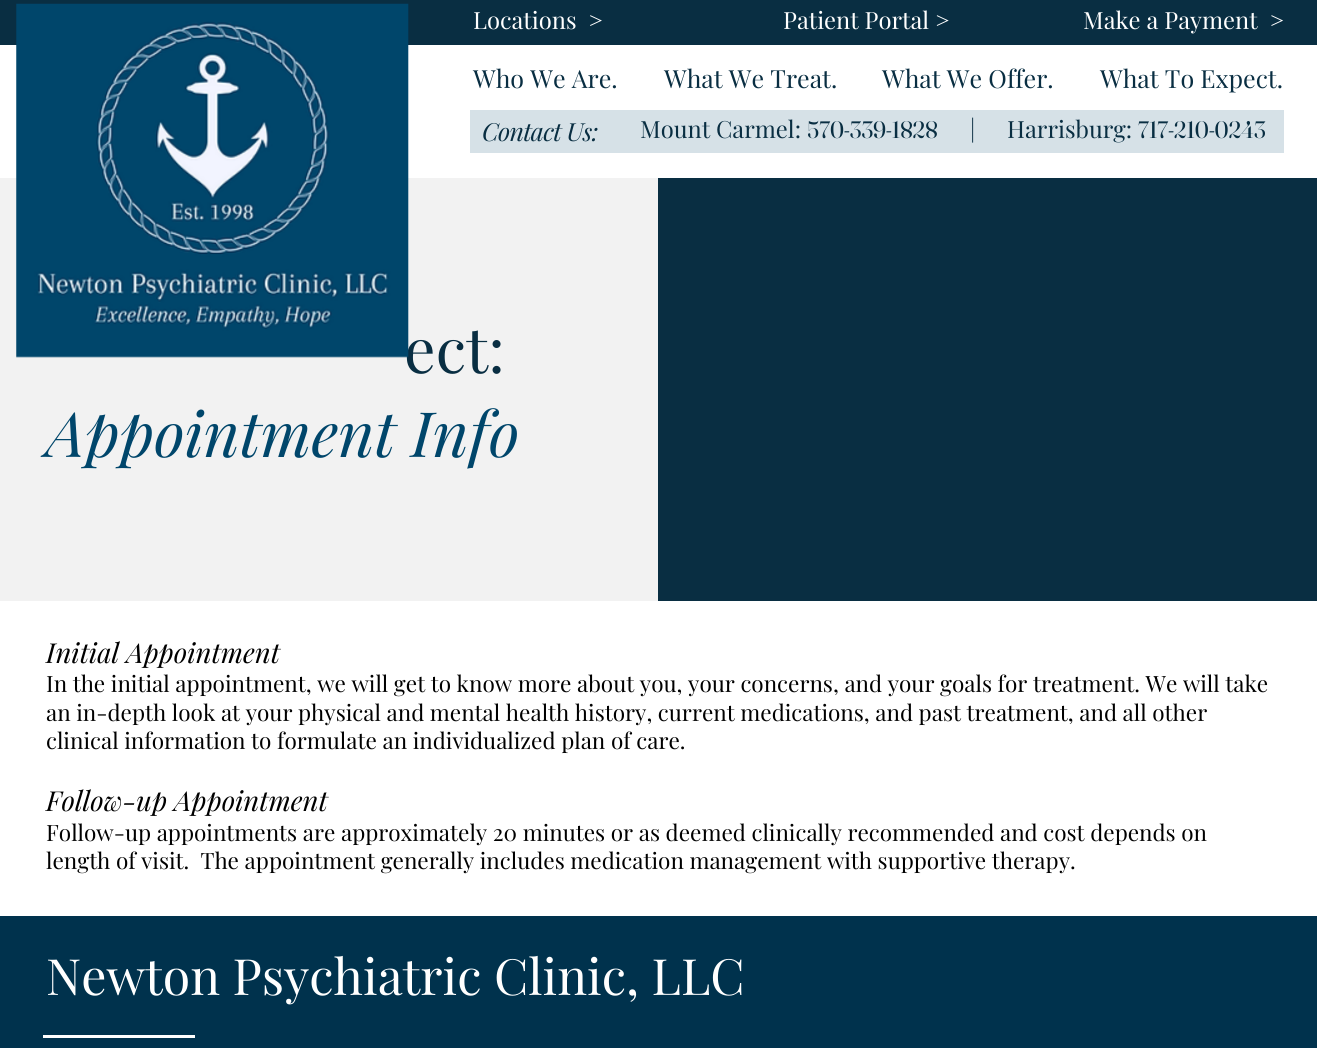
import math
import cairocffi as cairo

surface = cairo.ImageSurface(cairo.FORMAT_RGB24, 1317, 1048)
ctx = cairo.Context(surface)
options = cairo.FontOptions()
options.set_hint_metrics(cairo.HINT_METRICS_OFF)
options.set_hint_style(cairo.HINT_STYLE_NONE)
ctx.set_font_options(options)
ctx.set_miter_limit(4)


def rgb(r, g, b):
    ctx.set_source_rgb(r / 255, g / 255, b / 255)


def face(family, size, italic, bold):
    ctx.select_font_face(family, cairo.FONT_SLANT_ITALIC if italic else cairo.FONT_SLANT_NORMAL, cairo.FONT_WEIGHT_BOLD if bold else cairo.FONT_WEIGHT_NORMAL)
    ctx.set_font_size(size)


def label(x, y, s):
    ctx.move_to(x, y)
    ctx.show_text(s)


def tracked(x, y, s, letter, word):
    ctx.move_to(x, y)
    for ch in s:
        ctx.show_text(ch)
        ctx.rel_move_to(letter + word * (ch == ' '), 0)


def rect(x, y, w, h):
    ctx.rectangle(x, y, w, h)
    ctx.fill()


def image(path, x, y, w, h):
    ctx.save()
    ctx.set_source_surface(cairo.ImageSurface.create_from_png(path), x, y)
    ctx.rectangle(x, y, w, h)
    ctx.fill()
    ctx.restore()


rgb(255, 255, 255)
ctx.paint()
rgb(9, 46, 66)
rect(0, 0, 1317, 45)
face('Playfair Display', 23.75, 0, 0)
rgb(255, 255, 255)
label(473, 29, 'Locations  >')
label(783, 29, 'Patient Portal >')
label(1083, 29, 'Make a Payment  >')
rgb(242, 242, 242)
rect(0, 178, 658, 423)
face('Playfair Display', 62.5, 0, 0)
rgb(9, 46, 66)
label(404, 373, 'ect:')
image('image0.png', 16, 3, 393, 355)
face('Playfair Display', 25, 0, 0)
label(473, 88, 'Who We Are.')
label(664, 88, 'What We Treat.')
label(882, 88, 'What We Offer.')
label(1100, 88, 'What To Expect.')
rgb(214, 225, 231)
rect(470, 110, 814, 43)
face('Playfair Display', 25, 1, 0)
rgb(9, 46, 66)
tracked(482, 141, 'Contact Us:', -0.75, 0)
face('Playfair Display', 23.75, 0, 0)
label(640, 138, 'Mount Carmel:')
face('Fraunces', 23.75, 0, 0)
label(807, 138, '570-339-1828')
face('Playfair Display', 23.75, 0, 0)
label(970, 138, '|')
label(1007, 138, 'Harrisburg:')
face('Fraunces', 23.75, 0, 0)
label(1138, 138, '717-210-0243')
face('Playfair Display', 62.5, 1, 0)
rgb(0, 70, 107)
label(46, 457, 'Appointment Info')
rgb(9, 46, 66)
rect(658, 178, 659, 423)
face('Playfair Display', 27.5, 1, 0)
rgb(0, 0, 0)
label(46, 663, 'Initial Appointment')
face('Playfair Display', 22.5, 0, 0)
label(46, 692, 'In the initial appointment, we will get to know more about you, your concerns, and your goals for treatment. We will take')
label(46, 721, 'an in-depth look at your physical and mental health history, current medications, and past treatment, and all other')
label(46, 749, 'clinical information to formulate an individualized plan of care.')
face('Playfair Display', 27.5, 1, 0)
label(46, 811, 'Follow-up Appointment')
face('Playfair Display', 22.5, 0, 0)
label(46, 841, 'Follow-up appointments are approximately 20 minutes or as deemed clinically recommended and cost depends on')
label(46, 869, 'length of visit.  The appointment generally includes medication management with supportive therapy.')
rgb(0, 50, 77)
rect(0, 916, 1317, 132)
face('Playfair Display', 50, 0, 0)
rgb(255, 255, 255)
label(46, 995, 'Newton Psychiatric Clinic, LLC')
rect(43, 1035, 152, 3)
surface.write_to_png('render.png')
